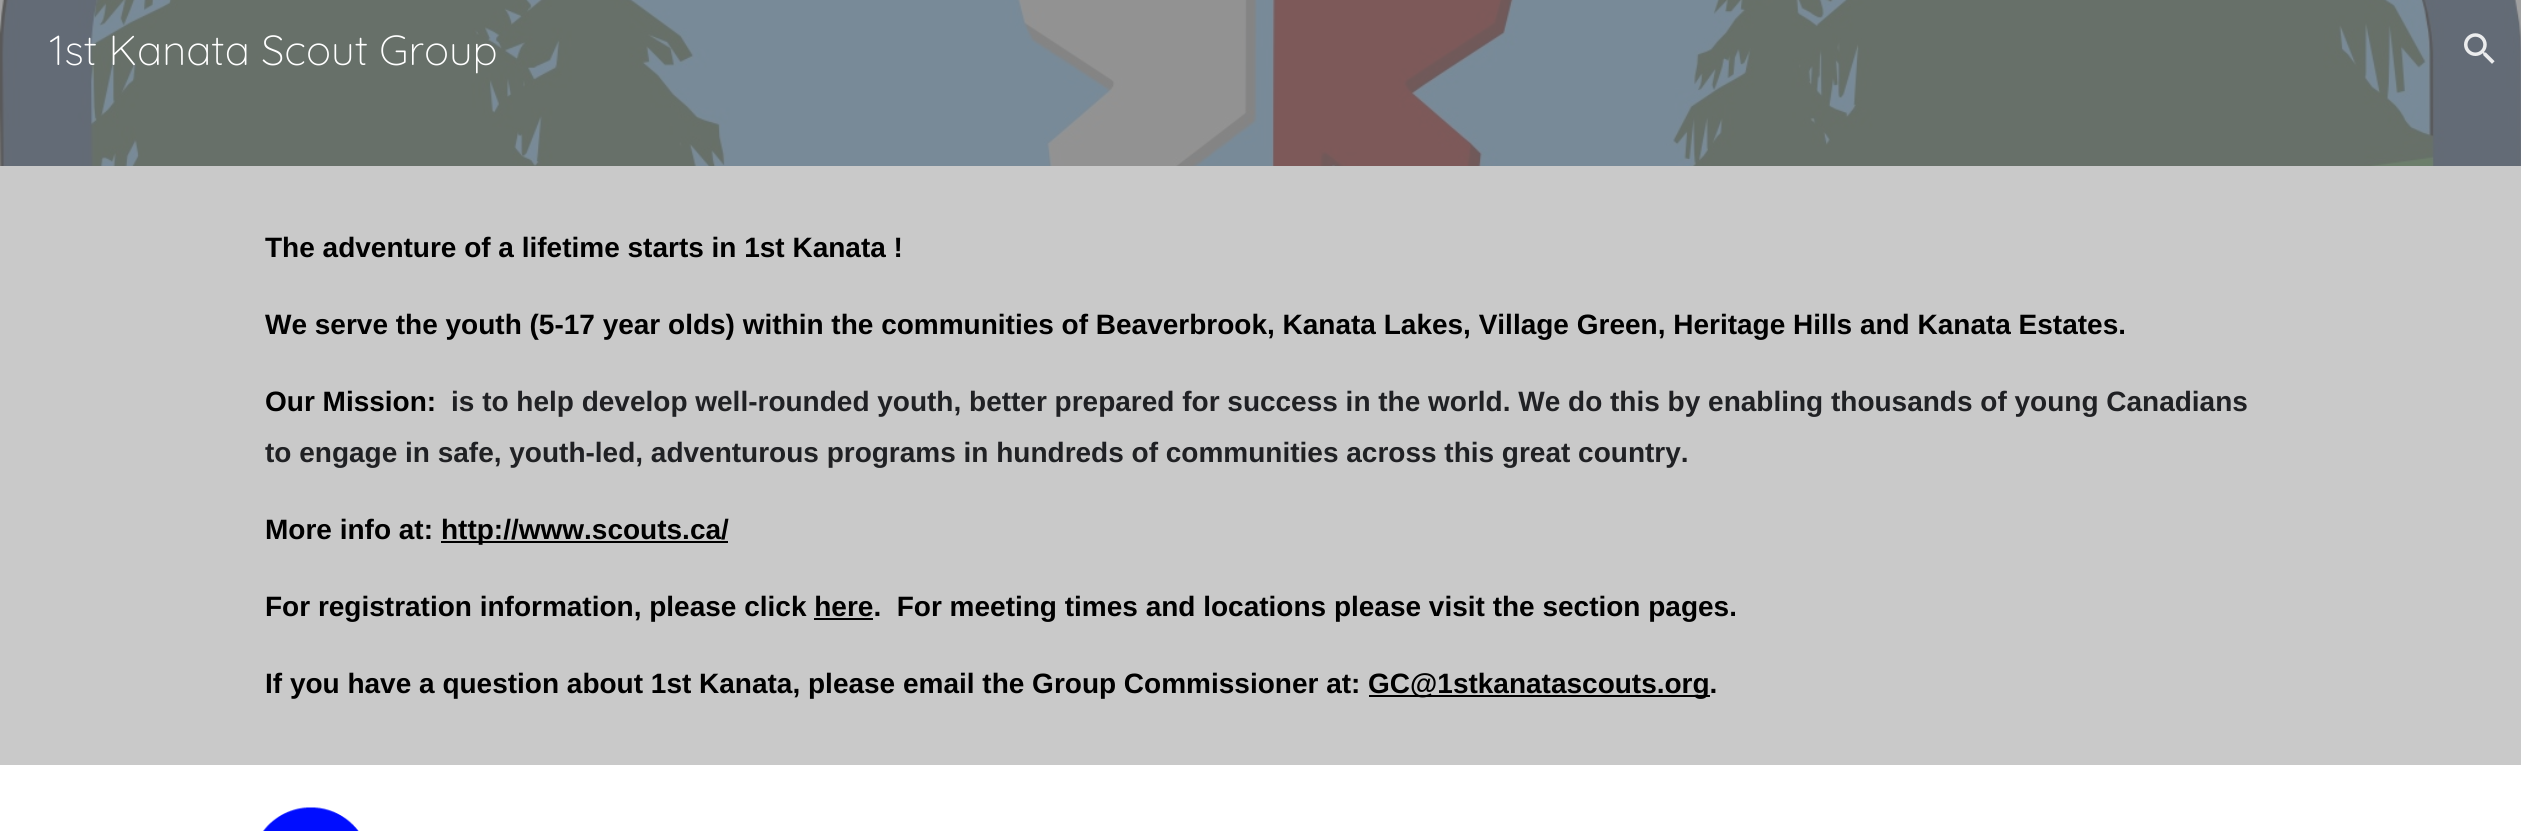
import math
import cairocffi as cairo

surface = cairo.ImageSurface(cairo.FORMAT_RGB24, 2521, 831)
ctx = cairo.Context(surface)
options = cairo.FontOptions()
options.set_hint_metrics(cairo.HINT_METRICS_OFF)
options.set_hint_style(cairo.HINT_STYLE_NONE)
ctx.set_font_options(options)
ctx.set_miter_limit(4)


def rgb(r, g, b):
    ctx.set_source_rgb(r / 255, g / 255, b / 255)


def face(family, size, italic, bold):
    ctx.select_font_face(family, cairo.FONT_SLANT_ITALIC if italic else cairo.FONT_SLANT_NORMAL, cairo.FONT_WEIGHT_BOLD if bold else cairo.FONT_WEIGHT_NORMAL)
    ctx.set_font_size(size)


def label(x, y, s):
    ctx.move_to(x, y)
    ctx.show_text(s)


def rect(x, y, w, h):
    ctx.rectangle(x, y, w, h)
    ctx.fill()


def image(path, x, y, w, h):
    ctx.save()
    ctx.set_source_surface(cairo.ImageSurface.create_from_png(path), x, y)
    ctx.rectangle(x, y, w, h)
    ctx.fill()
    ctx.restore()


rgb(255, 255, 255)
ctx.paint()
image('image1.png', 0, 0, 2521, 166)
face('Quicksand Light', 42, 0, 0)
rgb(255, 255, 255)
label(49, 65, '1st Kanata Scout Group')
image('image0.png', 2464, 33, 31, 31)
rgb(201, 201, 201)
rect(0, 166, 2521, 599)
face('Liberation Sans', 28, 0, 1)
rgb(0, 0, 0)
label(265, 257, 'The adventure of a lifetime starts in 1st Kanata !')
label(265, 334, 'We serve the youth (5-17 year olds) within the communities of Beaverbrook, Kanata Lakes, Village Green, Heritage Hills and Kanata Estates.')
label(265, 411, 'Our Mission:')
rgb(32, 33, 36)
label(451, 411, 'is to help develop well-rounded youth, better prepared for success in the world. We do this by enabling thousands of young Canadians')
label(265, 462, 'to engage in safe, youth-led, adventurous programs in hundreds of communities across this great country.')
rgb(0, 0, 0)
label(265, 539, 'More info at:')
rect(441, 541, 287, 2)
label(441, 539, 'http://www.scouts.ca/')
label(265, 616, 'For registration information, please click here.  For meeting times and locations please visit the section pages.')
rect(814, 618, 59, 2)
label(265, 693, 'If you have a question about 1st Kanata, please email the Group Commissioner at:')
rect(1369, 695, 341, 2)
label(1368, 693, 'GC@1stkanatascouts.org.')
image('image2.png', 262, 807, 97, 24)
surface.write_to_png('render.png')
